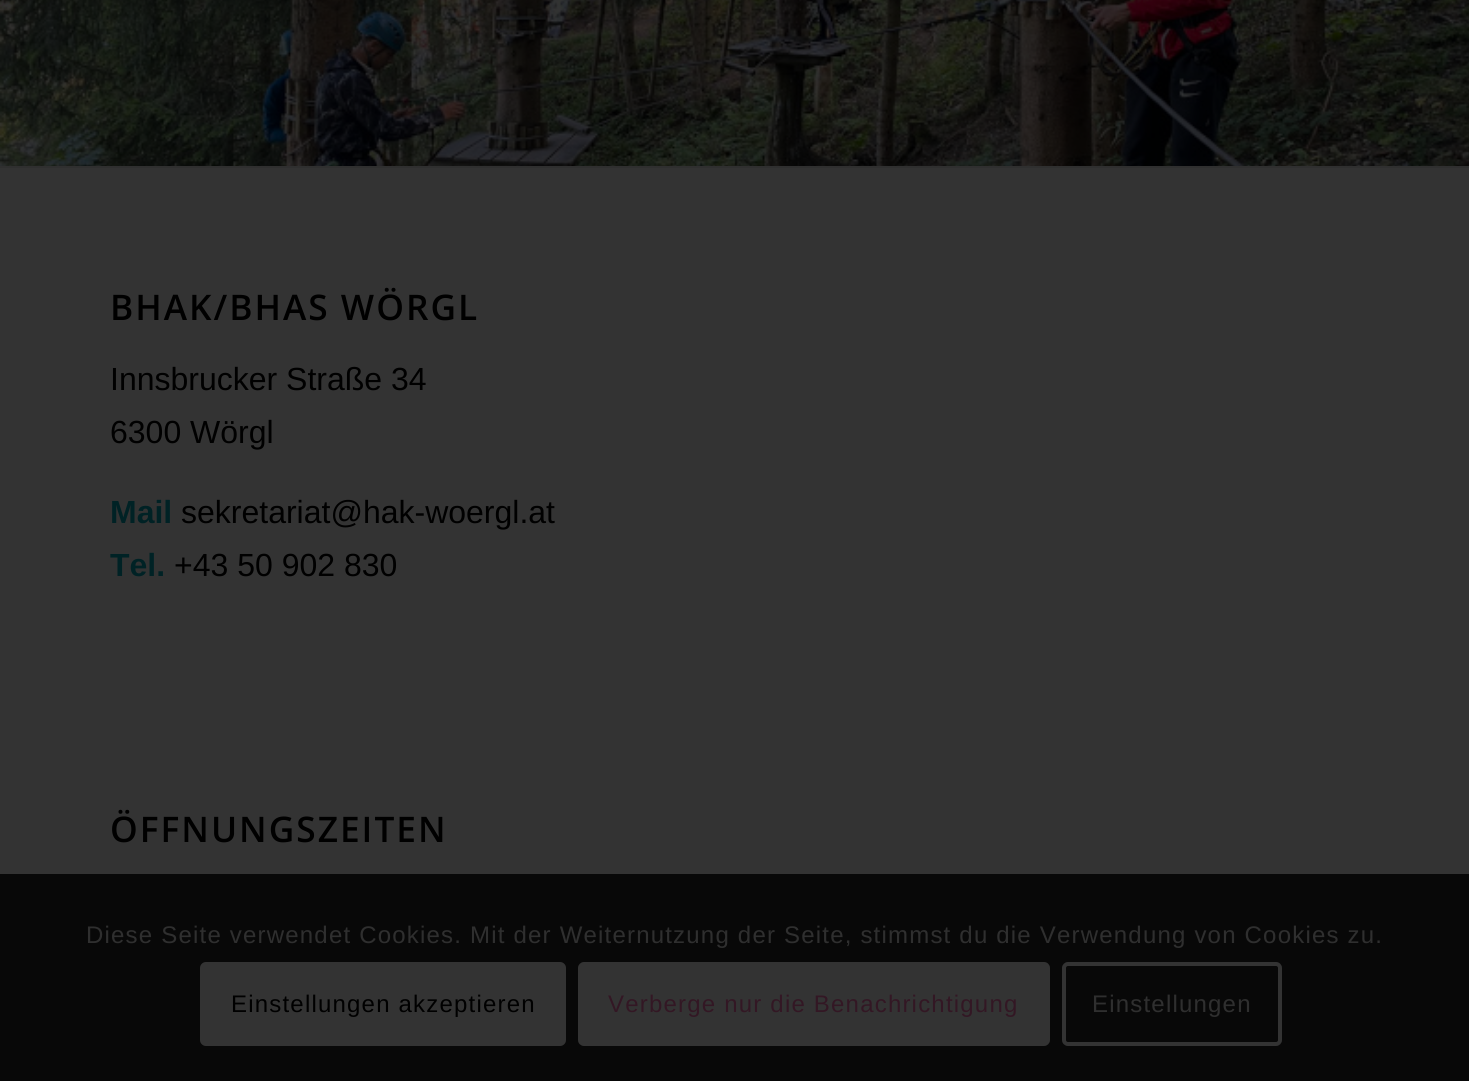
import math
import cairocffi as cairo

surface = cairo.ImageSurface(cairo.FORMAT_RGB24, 1469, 1081)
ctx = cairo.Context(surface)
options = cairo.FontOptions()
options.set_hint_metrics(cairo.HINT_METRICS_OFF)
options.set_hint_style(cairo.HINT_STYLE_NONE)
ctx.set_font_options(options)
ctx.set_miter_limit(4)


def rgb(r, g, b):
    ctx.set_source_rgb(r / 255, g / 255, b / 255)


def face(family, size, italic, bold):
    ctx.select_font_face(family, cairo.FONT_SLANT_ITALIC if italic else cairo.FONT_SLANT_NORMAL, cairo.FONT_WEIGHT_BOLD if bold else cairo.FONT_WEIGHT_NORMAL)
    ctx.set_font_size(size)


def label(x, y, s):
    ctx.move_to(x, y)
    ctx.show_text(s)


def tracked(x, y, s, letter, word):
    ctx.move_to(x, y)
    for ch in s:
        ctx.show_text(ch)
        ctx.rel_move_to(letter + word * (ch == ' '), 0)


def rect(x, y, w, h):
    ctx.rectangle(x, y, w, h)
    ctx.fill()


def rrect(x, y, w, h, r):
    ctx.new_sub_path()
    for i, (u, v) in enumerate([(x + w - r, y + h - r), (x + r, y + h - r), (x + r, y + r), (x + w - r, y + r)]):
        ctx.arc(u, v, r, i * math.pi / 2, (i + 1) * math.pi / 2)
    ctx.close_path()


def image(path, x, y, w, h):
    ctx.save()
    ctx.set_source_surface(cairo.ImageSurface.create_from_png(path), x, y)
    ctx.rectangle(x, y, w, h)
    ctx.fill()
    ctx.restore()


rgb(51, 51, 51)
ctx.paint()
rgb(8, 8, 8)
rect(0, 874, 1469, 207)
image('image0.png', 0, 0, 1469, 166)
rgb(47, 47, 47)
rect(0, 166, 1469, 2)
face('Open Sans SemiBold', 35.25, 0, 0)
rgb(0, 0, 0)
tracked(110, 320, 'BHAK/BHAS WÖRGL', 2, 0)
face('Liberation Sans', 32, 0, 0)
label(110, 390, 'Innsbrucker Straße 34')
label(110, 443, '6300 Wörgl')
face('Liberation Sans', 32, 0, 1)
rgb(0, 34, 37)
label(110, 523, 'Mail')
face('Liberation Sans', 32, 0, 0)
rgb(0, 0, 0)
label(181, 523, 'sekretariat@hak-woergl.at')
face('Liberation Sans', 32, 0, 1)
rgb(0, 34, 37)
label(110, 576, 'Tel.')
face('Liberation Sans', 32, 0, 0)
rgb(0, 0, 0)
label(174, 576, '+43 50 902 830')
face('Open Sans SemiBold', 35.25, 0, 0)
tracked(110, 842, 'ÖFFNUNGSZEITEN', 2, 0)
face('Liberation Sans', 24, 0, 0)
rgb(47, 47, 47)
tracked(86, 943, 'Diese Seite verwendet Cookies. Mit der Weiternutzung der Seite, stimmst du die Verwendung von Cookies zu.', 1.2, 0)
rgb(51, 51, 51)
rrect(200, 962, 366, 84, 6)
ctx.fill()
rgb(0, 0, 0)
tracked(231, 1012, 'Einstellungen akzeptieren', 1.2, 0)
rgb(51, 51, 51)
rrect(580, 964, 468, 80, 4)
ctx.fill_preserve()
ctx.set_line_width(4)
ctx.stroke()
rgb(51, 23, 36)
tracked(608, 1012, 'Verberge nur die Benachrichtigung', 1.2, 0)
rrect(1064, 964, 216, 80, 4)
rgb(51, 51, 51)
ctx.stroke()
rgb(47, 47, 47)
tracked(1092, 1012, 'Einstellungen', 1.2, 0)
surface.write_to_png('render.png')
